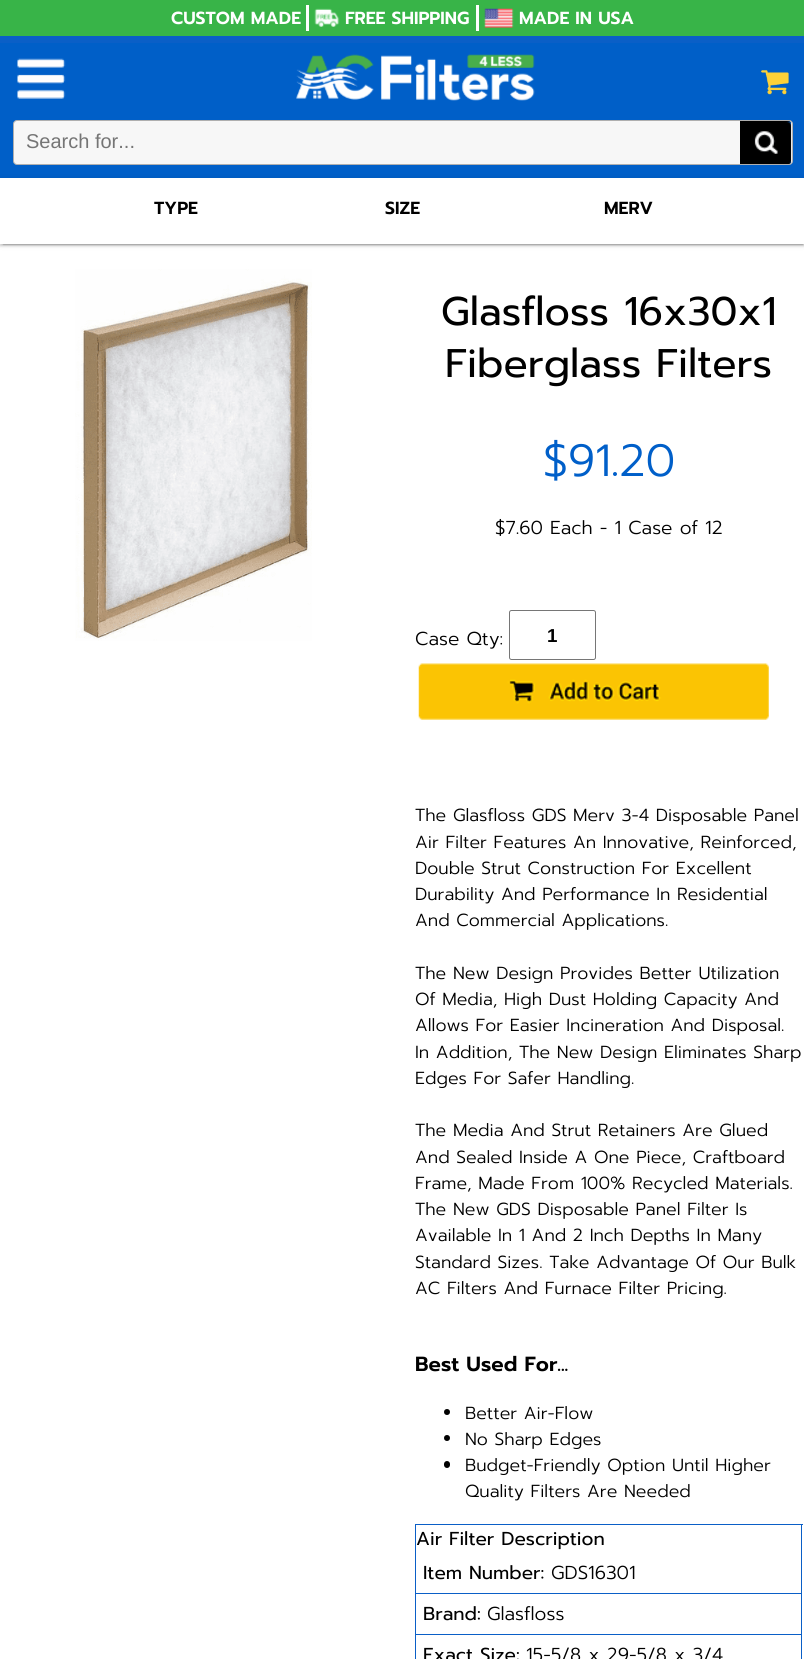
import math
import cairocffi as cairo

surface = cairo.ImageSurface(cairo.FORMAT_RGB24, 804, 1659)
ctx = cairo.Context(surface)
options = cairo.FontOptions()
options.set_hint_metrics(cairo.HINT_METRICS_OFF)
options.set_hint_style(cairo.HINT_STYLE_NONE)
ctx.set_font_options(options)
ctx.set_miter_limit(4)


def rgb(r, g, b):
    ctx.set_source_rgb(r / 255, g / 255, b / 255)


def face(family, size, italic, bold):
    ctx.select_font_face(family, cairo.FONT_SLANT_ITALIC if italic else cairo.FONT_SLANT_NORMAL, cairo.FONT_WEIGHT_BOLD if bold else cairo.FONT_WEIGHT_NORMAL)
    ctx.set_font_size(size)


def label(x, y, s):
    ctx.move_to(x, y)
    ctx.show_text(s)


def rect(x, y, w, h):
    ctx.rectangle(x, y, w, h)
    ctx.fill()


def rrect(x, y, w, h, r):
    ctx.new_sub_path()
    for i, (u, v) in enumerate([(x + w - r, y + h - r), (x + r, y + h - r), (x + r, y + r), (x + w - r, y + r)]):
        ctx.arc(u, v, r, i * math.pi / 2, (i + 1) * math.pi / 2)
    ctx.close_path()


def soft_shadow(x, y, w, h, r, blur, alpha):
    ctx.push_group_with_content(cairo.CONTENT_ALPHA)
    ctx.set_operator(cairo.OPERATOR_SOURCE)
    for i in range(15, -16, -2):
        e = blur * i / 6
        if min(w, h) + 2 * e > 0:
            ctx.set_source_rgba(0, 0, 0, alpha * math.erfc((i - 1) / 8.5) / 2)
            rrect(x - e, y - e, w + 2 * e, h + 2 * e, max(0, min(r + e + blur * .6, min(w, h) / 2 + e)))
            ctx.fill()
    ctx.mask(ctx.pop_group())


def image(path, x, y, w, h):
    ctx.save()
    ctx.set_source_surface(cairo.ImageSurface.create_from_png(path), x, y)
    ctx.rectangle(x, y, w, h)
    ctx.fill()
    ctx.restore()


rgb(255, 255, 255)
ctx.paint()
rgb(10, 95, 199)
rect(0, 36, 804, 7)
rgb(56, 180, 72)
rect(0, 0, 804, 36)
rgb(255, 255, 255)
rect(306, 5, 3, 26)
face('Prompt SemiBold', 17.5, 0, 0)
label(171, 24, 'CUSTOM MADE')
rect(476, 5, 3, 26)
image('image0.png', 314, 8, 26, 19)
label(345, 24, 'FREE SHIPPING')
image('image1.png', 484, 8, 30, 20)
label(519, 24, 'MADE IN USA')
rgb(0, 95, 200)
rect(0, 43, 804, 135)
image('image2.png', 17, 58, 49, 41)
image('image3.png', 296, 54, 239, 47)
image('image4.png', 761, 70, 28, 25)
rgb(247, 247, 247)
rrect(13.5, 120.5, 779, 44, 3.5)
ctx.fill_preserve()
rgb(175, 175, 175)
ctx.set_line_width(1)
ctx.stroke()
face('Liberation Sans', 20, 0, 0)
rgb(117, 117, 117)
label(26, 148, 'Search for...')
rgb(0, 0, 0)
ctx.new_path()
ctx.move_to(740, 121)
ctx.line_to(788.5, 121)
ctx.curve_to(790, 121, 791, 122, 791, 123.5)
ctx.line_to(791, 161.5)
ctx.curve_to(791, 163, 790, 164, 788.5, 164)
ctx.line_to(740, 164)
ctx.close_path()
ctx.fill()
image('image5.png', 754, 121, 38, 43)
rgb(0, 0, 0)
soft_shadow(3, 184, 800, 61, 0, 0.5, 0.2)
soft_shadow(0, 179, 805, 66, 0, 3, 0.12)
soft_shadow(0, 180, 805, 66, 0, 1, 0.14)
rgb(255, 255, 255)
rect(0, 178, 804, 66)
face('Prompt SemiBold', 17.5, 0, 0)
rgb(0, 0, 0)
label(154, 214, 'TYPE')
label(385, 214, 'SIZE')
label(604, 214, 'MERV')
image('image6.png', 75, 269, 237, 372)
face('Prompt', 40, 0, 0)
label(441, 325, 'Glasfloss 16x30x1')
label(445, 377, 'Fiberglass Filters')
face('Prompt Light', 45, 0, 0)
rgb(0, 95, 201)
label(543, 476, '$91.20')
face('Prompt Light', 18.75, 0, 0)
rgb(0, 0, 0)
label(495, 534, '$7.60 Each - 1 Case of 12')
label(415, 645, 'Case Qty:')
rrect(509.5, 610.5, 86, 49, 2)
rgb(118, 118, 118)
ctx.stroke()
face('Liberation Sans', 18.75, 0, 1)
rgb(0, 0, 0)
label(547, 642, '1')
image('image7.png', 418, 663, 351, 57)
face('Prompt Light', 17.5, 0, 0)
label(415, 821, 'The Glasfloss GDS Merv 3-4 Disposable Panel')
label(415, 848, 'Air Filter Features An Innovative, Reinforced,')
label(415, 874, 'Double Strut Construction For Excellent')
label(415, 900, 'Durability And Performance In Residential')
label(415, 926, 'And Commercial Applications.')
label(415, 979, 'The New Design Provides Better Utilization')
label(415, 1005, 'Of Media, High Dust Holding Capacity And')
label(415, 1031, 'Allows For Easier Incineration And Disposal.')
label(415, 1058, 'In Addition, The New Design Eliminates Sharp')
label(415, 1084, 'Edges For Safer Handling.')
label(415, 1136, 'The Media And Strut Retainers Are Glued')
label(415, 1163, 'And Sealed Inside A One Piece, Craftboard')
label(415, 1189, 'Frame, Made From 100% Recycled Materials.')
label(415, 1215, 'The New GDS Disposable Panel Filter Is')
label(415, 1241, 'Available In 1 And 2 Inch Depths In Many')
label(415, 1268, 'Standard Sizes. Take Advantage Of Our Bulk')
label(415, 1294, 'AC Filters And Furnace Filter Pricing.')
face('Prompt SemiBold', 20.5, 0, 0)
label(415, 1371, 'Best Used For...')
ctx.new_path()
ctx.arc(447, 1412, 3, 0, 2 * math.pi)
ctx.fill()
face('Prompt Light', 17.5, 0, 0)
label(465, 1419, 'Better Air-Flow')
ctx.new_path()
ctx.arc(447, 1438, 3, 0, 2 * math.pi)
ctx.fill()
label(465, 1445, 'No Sharp Edges')
rrect(444, 1461, 6, 7, 3)
ctx.fill()
label(465, 1471, 'Budget-Friendly Option Until Higher')
label(465, 1497, 'Quality Filters Are Needed')
rgb(10, 95, 199)
rect(415, 1524, 388, 1)
rect(801, 1524, 1, 135)
rect(415, 1524, 1, 135)
face('Prompt', 18.75, 0, 0)
rgb(0, 0, 0)
label(416, 1545, 'Air Filter Description')
rgb(10, 95, 199)
rect(416, 1593, 385, 1)
rgb(0, 0, 0)
label(423, 1579, 'Item Number:')
face('Prompt Light', 18.75, 0, 0)
label(551, 1579, 'GDS16301')
rgb(10, 95, 199)
rect(416, 1634, 385, 1)
face('Prompt', 18.75, 0, 0)
rgb(0, 0, 0)
label(423, 1620, 'Brand:')
face('Prompt Light', 18.75, 0, 0)
label(487, 1620, 'Glasfloss')
face('Prompt', 18.75, 0, 0)
label(423, 1661, 'Exact Size:')
face('Prompt Light', 18.75, 0, 0)
label(526, 1661, '15-5/8 x 29-5/8 x 3/4')
surface.write_to_png('render.png')
